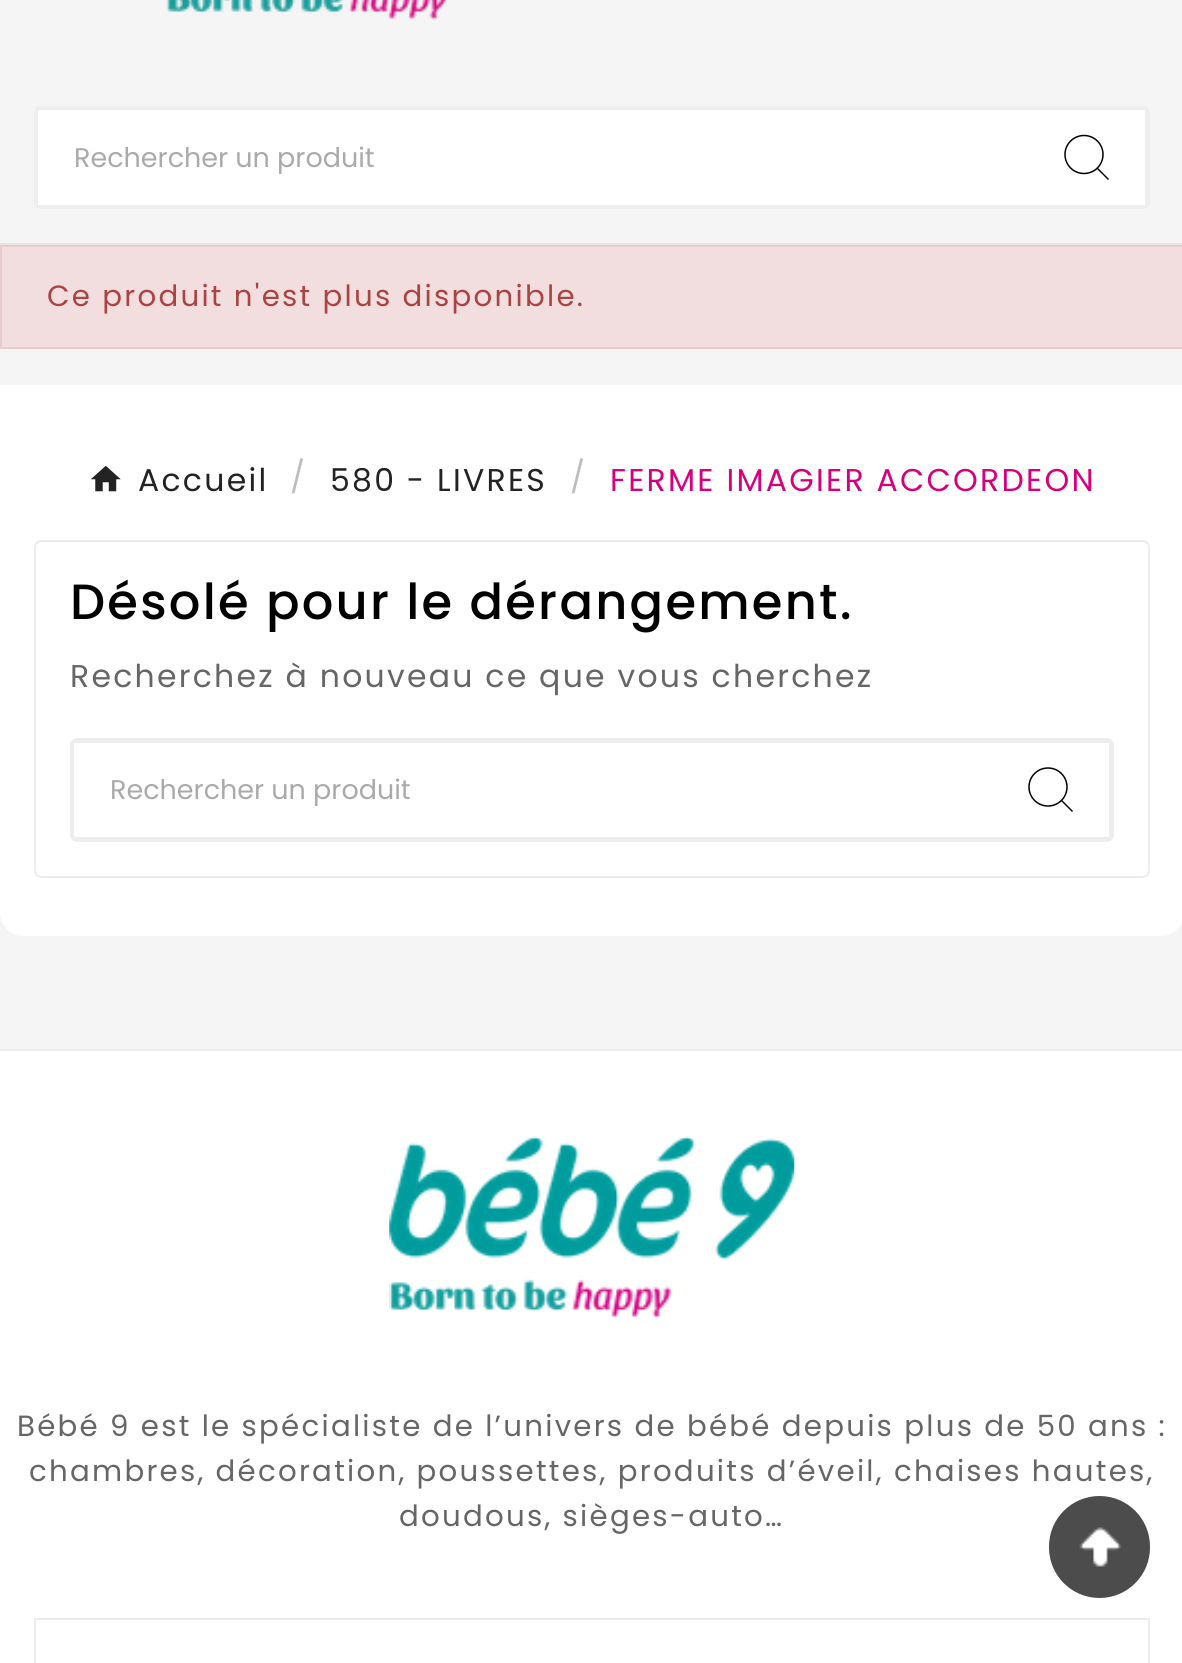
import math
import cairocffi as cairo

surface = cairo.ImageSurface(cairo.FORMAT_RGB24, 1182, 1663)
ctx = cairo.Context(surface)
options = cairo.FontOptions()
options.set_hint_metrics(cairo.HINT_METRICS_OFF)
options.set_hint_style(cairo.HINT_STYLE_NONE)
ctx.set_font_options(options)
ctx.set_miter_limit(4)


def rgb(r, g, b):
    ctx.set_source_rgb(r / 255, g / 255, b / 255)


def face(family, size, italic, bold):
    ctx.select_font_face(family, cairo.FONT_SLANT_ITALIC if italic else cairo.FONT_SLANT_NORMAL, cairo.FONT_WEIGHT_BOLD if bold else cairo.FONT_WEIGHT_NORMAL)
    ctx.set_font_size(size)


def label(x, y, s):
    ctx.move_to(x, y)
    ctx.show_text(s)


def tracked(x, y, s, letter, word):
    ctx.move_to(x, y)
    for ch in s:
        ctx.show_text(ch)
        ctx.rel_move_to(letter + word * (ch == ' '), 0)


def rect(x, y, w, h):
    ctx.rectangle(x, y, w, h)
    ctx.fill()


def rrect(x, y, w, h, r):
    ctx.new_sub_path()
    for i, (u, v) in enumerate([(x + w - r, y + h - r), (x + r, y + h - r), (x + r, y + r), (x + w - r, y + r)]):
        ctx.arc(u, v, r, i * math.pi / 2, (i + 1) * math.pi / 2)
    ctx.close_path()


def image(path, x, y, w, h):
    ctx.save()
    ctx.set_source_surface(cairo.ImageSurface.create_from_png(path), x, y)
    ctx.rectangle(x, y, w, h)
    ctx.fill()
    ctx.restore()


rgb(245, 245, 245)
ctx.paint()
rgb(228, 228, 228)
rect(0, 243, 1182, 2)
image('image0.png', 166, 0, 281, 20)
rgb(255, 255, 255)
rrect(34, 106, 1116, 103, 7)
ctx.fill()
rrect(36.5, 108.5, 1111, 98, 4.5)
ctx.set_source_rgba(0, 0, 0, 0.07)
ctx.set_line_width(5)
ctx.stroke()
rgb(255, 255, 255)
rect(38, 110, 1107, 95)
face('Poppins', 27, 0, 0)
rgb(170, 170, 170)
label(74, 167, 'Rechercher un produit')
rgb(0, 0, 0)
ctx.new_path()
ctx.move_to(1108, 180)
ctx.line_to(1096.5, 168.5)
ctx.line_to(1097.5, 167.5)
ctx.line_to(1109, 179)
ctx.close_path()
ctx.fill()
ctx.arc(1084, 154.5, 19, 0, 2 * math.pi)
ctx.set_line_width(1.5)
ctx.stroke()
rgb(242, 222, 222)
ctx.rectangle(1, 246, 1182, 102)
ctx.fill_preserve()
rgb(235, 204, 204)
ctx.set_line_width(2)
ctx.stroke()
face('Poppins', 29.25, 0, 0)
rgb(169, 68, 66)
tracked(47, 306, 'Ce produit n\'est plus disponible.', 2.25, 0)
rgb(255, 255, 255)
ctx.new_path()
ctx.move_to(0, 385)
ctx.line_to(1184, 385)
ctx.line_to(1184, 913)
ctx.curve_to(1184, 925.5, 1173.5, 936, 1161, 936)
ctx.line_to(23, 936)
ctx.curve_to(10.5, 936, 0, 925.5, 0, 913)
ctx.close_path()
ctx.fill()
image('image1.png', 90, 465, 31, 27)
face('Poppins', 31.5, 0, 0)
rgb(35, 35, 35)
tracked(138, 491, 'Accueil', 2.25, 0)
rgb(189, 189, 189)
tracked(290, 488, '/', 2.25, 0)
rgb(35, 35, 35)
tracked(330, 491, '580 - LIVRES', 2.25, 0)
rgb(189, 189, 189)
tracked(570, 488, '/', 2.25, 0)
rgb(214, 0, 126)
tracked(610, 491, 'FERME IMAGIER ACCORDEON', 2.25, 0)
rrect(35, 541, 1114, 336, 6)
rgb(237, 237, 237)
ctx.stroke()
face('Poppins Medium', 49.5, 0, 0)
rgb(0, 0, 0)
tracked(70, 619, 'Désolé pour le dérangement.', 2.25, 0)
face('Poppins', 31.5, 0, 0)
rgb(102, 102, 102)
tracked(70, 687, 'Recherchez à nouveau ce que vous cherchez', 2.25, 0)
rrect(72.5, 740.5, 1039, 99, 4.5)
rgb(237, 237, 237)
ctx.set_line_width(5)
ctx.stroke()
rgb(255, 255, 255)
rect(74, 743, 2, 94)
face('Poppins', 27, 0, 0)
rgb(170, 170, 170)
label(110, 799, 'Rechercher un produit')
rgb(255, 255, 255)
rect(1108, 743, 1, 94)
rgb(0, 0, 0)
ctx.new_path()
ctx.move_to(1072, 812)
ctx.line_to(1060.5, 800.5)
ctx.line_to(1061.5, 799.5)
ctx.line_to(1073, 811)
ctx.close_path()
ctx.fill()
ctx.arc(1048, 787, 19, 0, 2 * math.pi)
ctx.set_line_width(1.5)
ctx.stroke()
rgb(255, 255, 255)
rect(0, 1051, 1182, 612)
rgb(237, 237, 237)
rect(0, 1049, 1182, 2)
image('image2.png', 389, 1136, 406, 182)
face('Poppins', 29.25, 0, 0)
rgb(102, 102, 102)
tracked(17, 1436, 'Bébé 9 est le spécialiste de l’univers de bébé depuis plus de 50 ans :', 2.25, 0)
tracked(29, 1481, 'chambres, décoration, poussettes, produits d’éveil, chaises hautes,', 2.25, 0)
tracked(399, 1526, 'doudous, sièges-auto…', 2.25, 0)
rgb(76, 76, 76)
rrect(1049, 1496, 101, 102, 50.5)
ctx.fill()
image('image3.png', 1079, 1527, 42, 40)
ctx.rectangle(35, 1619, 1114, 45)
rgb(237, 237, 237)
ctx.set_line_width(2)
ctx.stroke()
surface.write_to_png('render.png')
